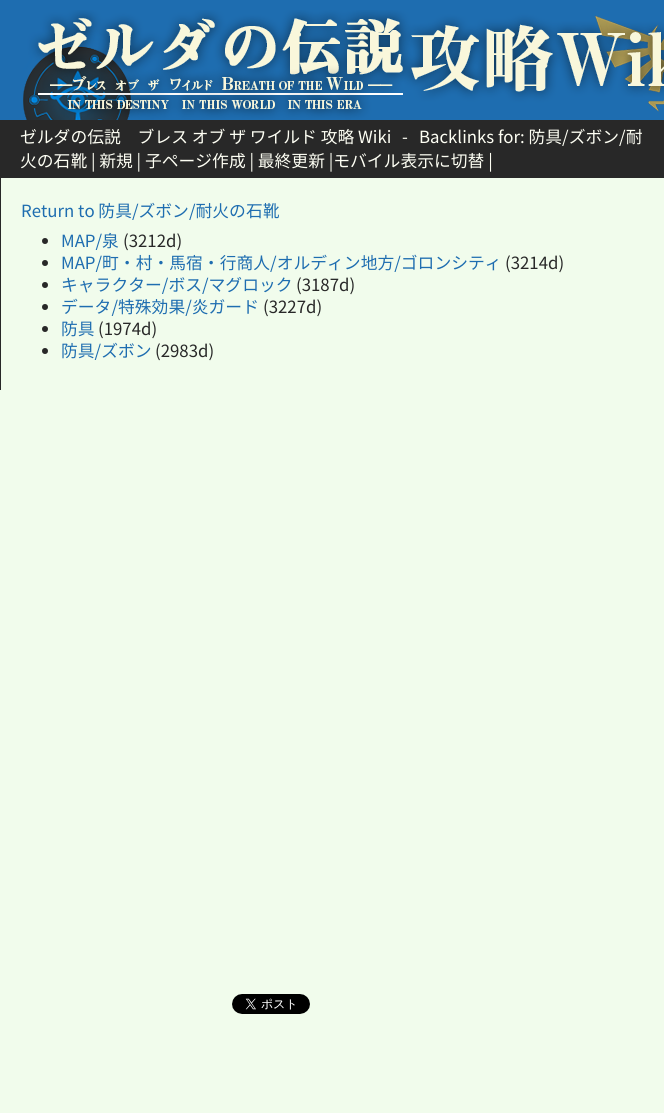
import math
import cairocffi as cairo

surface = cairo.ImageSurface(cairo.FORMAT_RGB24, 664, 1113)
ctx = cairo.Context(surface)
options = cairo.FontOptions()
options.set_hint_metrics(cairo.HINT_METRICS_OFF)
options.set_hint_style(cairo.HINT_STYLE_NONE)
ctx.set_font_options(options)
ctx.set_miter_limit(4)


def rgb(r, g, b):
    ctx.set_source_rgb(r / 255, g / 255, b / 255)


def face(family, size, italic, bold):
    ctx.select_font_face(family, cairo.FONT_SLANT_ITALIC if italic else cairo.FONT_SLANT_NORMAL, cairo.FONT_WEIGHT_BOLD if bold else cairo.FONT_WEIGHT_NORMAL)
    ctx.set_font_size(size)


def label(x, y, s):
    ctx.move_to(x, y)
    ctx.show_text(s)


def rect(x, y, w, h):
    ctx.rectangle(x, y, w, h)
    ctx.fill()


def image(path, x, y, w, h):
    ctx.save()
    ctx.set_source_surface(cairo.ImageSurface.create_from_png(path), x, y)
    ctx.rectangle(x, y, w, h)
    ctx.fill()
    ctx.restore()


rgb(241, 252, 236)
ctx.paint()
rgb(30, 109, 176)
rect(0, 0, 664, 120)
image('image0.png', 23, 10, 641, 110)
rgb(40, 40, 40)
rect(0, 120, 664, 58)
face('Noto Sans JP', 16.8, 0, 0)
rgb(254, 255, 244)
label(20, 143, 'ゼルダの伝説　ブレス オブ ザ ワイルド 攻略 Wiki')
label(402, 143, '-')
label(419, 143, 'Backlinks for: 防具/ズボン/耐')
label(20, 167, '火の石靴 | 新規 | 子ページ作成 | 最終更新 |モバイル表示に切替 |')
rgb(40, 40, 40)
rect(0, 178, 1, 212)
rgb(30, 109, 176)
label(21, 217, 'Return to 防具/ズボン/耐火の石靴')
rgb(40, 40, 40)
ctx.new_path()
ctx.arc(45, 241, 3, 0, 2 * math.pi)
ctx.fill()
rgb(30, 109, 176)
label(61, 247, 'MAP/泉')
rgb(40, 40, 40)
label(123, 247, '(3212d)')
ctx.new_path()
ctx.arc(45, 263, 3, 0, 2 * math.pi)
ctx.fill()
rgb(30, 109, 176)
label(61, 269, 'MAP/町・村・馬宿・行商人/オルディン地方/ゴロンシティ')
rgb(40, 40, 40)
label(505, 269, '(3214d)')
ctx.new_path()
ctx.arc(45, 285, 3, 0, 2 * math.pi)
ctx.fill()
rgb(30, 109, 176)
label(61, 291, 'キャラクター/ボス/マグロック')
rgb(40, 40, 40)
label(296, 291, '(3187d)')
ctx.new_path()
ctx.arc(45, 307, 3, 0, 2 * math.pi)
ctx.fill()
rgb(30, 109, 176)
label(61, 313, 'データ/特殊効果/炎ガード')
rgb(40, 40, 40)
label(263, 313, '(3227d)')
ctx.new_path()
ctx.arc(45, 329, 3, 0, 2 * math.pi)
ctx.fill()
rgb(30, 109, 176)
label(61, 335, '防具')
rgb(40, 40, 40)
label(98, 335, '(1974d)')
ctx.new_path()
ctx.arc(45, 351, 3, 0, 2 * math.pi)
ctx.fill()
rgb(30, 109, 176)
label(61, 357, '防具/ズボン')
rgb(40, 40, 40)
label(155, 357, '(2983d)')
image('image1.png', 232, 994, 78, 20)
surface.write_to_png('render.png')
